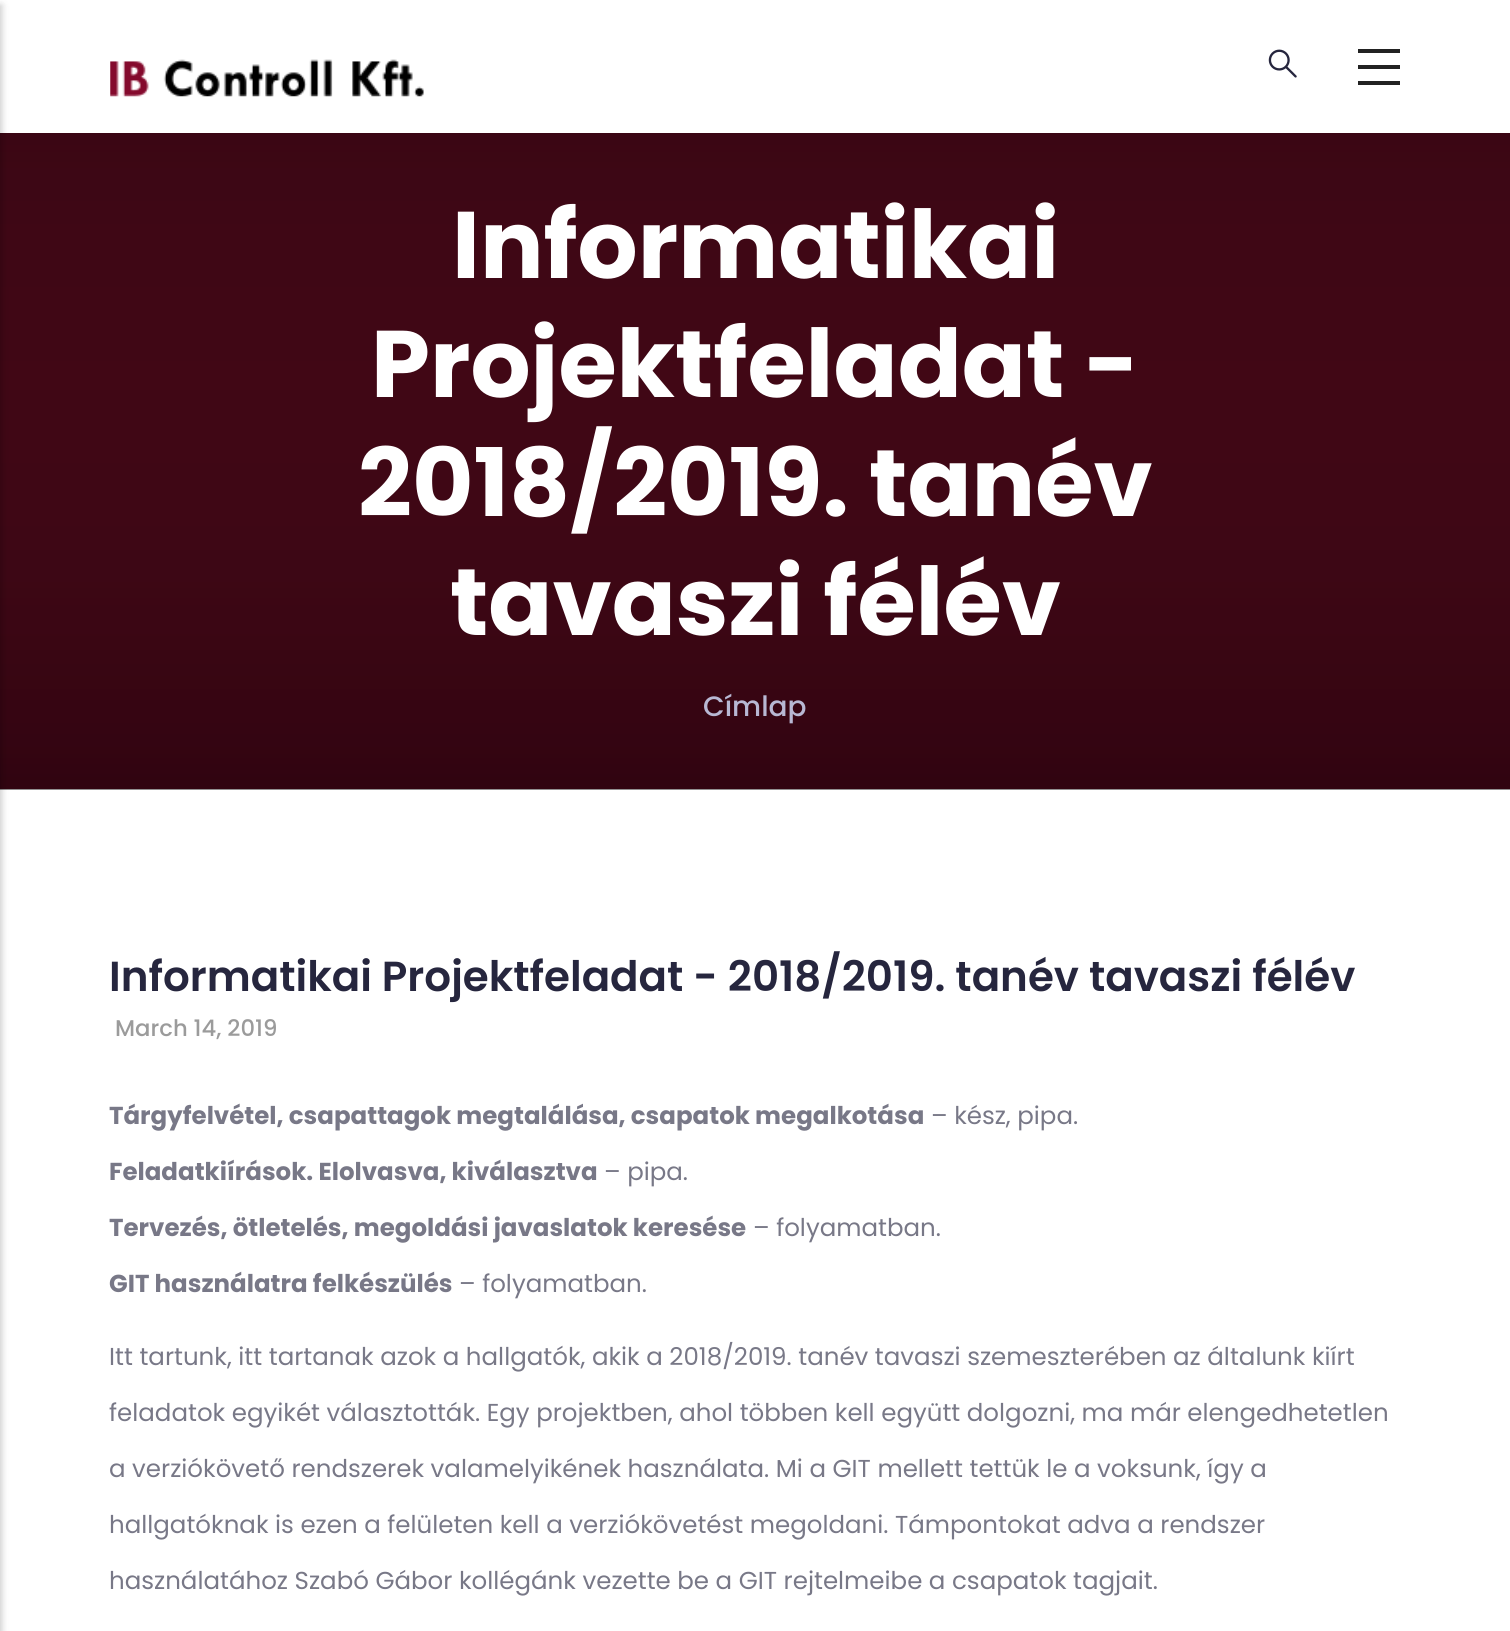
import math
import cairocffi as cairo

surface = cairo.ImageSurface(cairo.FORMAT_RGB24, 1510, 1631)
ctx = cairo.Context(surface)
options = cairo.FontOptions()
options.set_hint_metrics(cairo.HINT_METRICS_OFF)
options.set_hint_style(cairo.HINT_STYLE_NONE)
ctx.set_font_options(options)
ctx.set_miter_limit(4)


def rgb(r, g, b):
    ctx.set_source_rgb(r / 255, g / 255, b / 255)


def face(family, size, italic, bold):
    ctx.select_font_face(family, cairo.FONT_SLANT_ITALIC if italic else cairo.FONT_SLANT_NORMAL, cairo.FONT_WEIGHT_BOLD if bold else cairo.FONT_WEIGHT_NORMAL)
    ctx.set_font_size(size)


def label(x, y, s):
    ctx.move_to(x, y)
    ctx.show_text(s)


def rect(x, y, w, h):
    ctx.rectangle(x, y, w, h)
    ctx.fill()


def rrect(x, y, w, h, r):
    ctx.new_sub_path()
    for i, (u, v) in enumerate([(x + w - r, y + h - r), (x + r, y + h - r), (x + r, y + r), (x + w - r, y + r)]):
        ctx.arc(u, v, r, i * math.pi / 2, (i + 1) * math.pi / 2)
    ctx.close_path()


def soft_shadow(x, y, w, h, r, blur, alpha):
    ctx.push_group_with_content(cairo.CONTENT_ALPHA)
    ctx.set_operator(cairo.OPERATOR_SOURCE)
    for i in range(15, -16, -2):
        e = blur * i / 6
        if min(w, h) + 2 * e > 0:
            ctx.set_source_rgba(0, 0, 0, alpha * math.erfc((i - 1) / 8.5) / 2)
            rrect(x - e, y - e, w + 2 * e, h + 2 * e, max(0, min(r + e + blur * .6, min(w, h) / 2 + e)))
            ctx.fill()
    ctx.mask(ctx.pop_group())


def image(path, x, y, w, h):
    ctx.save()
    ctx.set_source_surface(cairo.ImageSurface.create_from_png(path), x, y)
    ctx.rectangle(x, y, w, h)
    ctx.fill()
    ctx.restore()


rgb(255, 255, 255)
ctx.paint()
image('image2.png', 0, 789, 1510, 1)
image('image3.png', 0, 133, 1510, 657)
rgb(0, 0, 0)
soft_shadow(-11, 5, 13, 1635, 0, 3.5, 0.2)
image('image0.png', 1268, 49, 29, 29)
rgb(34, 34, 34)
rect(1358, 49, 42, 4)
rect(1358, 65, 42, 4)
rect(1358, 81, 42, 4)
image('image1.png', 110, 59, 314, 38)
face('Poppins', 94.5, 0, 1)
rgb(255, 255, 255)
label(452, 278, 'Informatikai')
label(371, 397, 'Projektfeladat -')
label(358, 516, '2018/2019. tanév')
label(450, 635, 'tavaszi félév')
face('Poppins Medium', 28, 0, 0)
rgb(184, 184, 211)
label(703, 716, 'Címlap')
face('Poppins SemiBold', 42, 0, 0)
rgb(38, 38, 62)
label(109, 991, 'Informatikai Projektfeladat - 2018/2019. tanév tavaszi félév')
face('Poppins Medium', 22.75, 0, 0)
rgb(155, 155, 155)
label(115, 1036, 'March 14, 2019')
face('Poppins', 24.5, 0, 1)
rgb(120, 120, 135)
label(109, 1124, 'Tárgyfelvétel, csapattagok megtalálása, csapatok megalkotása')
face('Poppins', 24.5, 0, 0)
label(931, 1124, '– kész, pipa.')
face('Poppins', 24.5, 0, 1)
label(109, 1180, 'Feladatkiírások. Elolvasva, kiválasztva')
face('Poppins', 24.5, 0, 0)
label(604, 1180, '– pipa.')
face('Poppins', 24.5, 0, 1)
label(109, 1236, 'Tervezés, ötletelés, megoldási javaslatok keresése')
face('Poppins', 24.5, 0, 0)
label(753, 1236, '– folyamatban.')
face('Poppins', 24.5, 0, 1)
label(109, 1292, 'GIT használatra felkészülés')
face('Poppins', 24.5, 0, 0)
label(459, 1292, '– folyamatban.')
label(109, 1365, 'Itt tartunk, itt tartanak azok a hallgatók, akik a 2018/2019. tanév tavaszi szemeszterében az általunk kiírt')
label(109, 1421, 'feladatok egyikét választották. Egy projektben, ahol többen kell együtt dolgozni, ma már elengedhetetlen')
label(109, 1477, 'a verziókövető rendszerek valamelyikének használata. Mi a GIT mellett tettük le a voksunk, így a')
label(109, 1533, 'hallgatóknak is ezen a felületen kell a verziókövetést megoldani. Támpontokat adva a rendszer')
label(109, 1589, 'használatához Szabó Gábor kollégánk vezette be a GIT rejtelmeibe a csapatok tagjait.')
surface.write_to_png('render.png')
